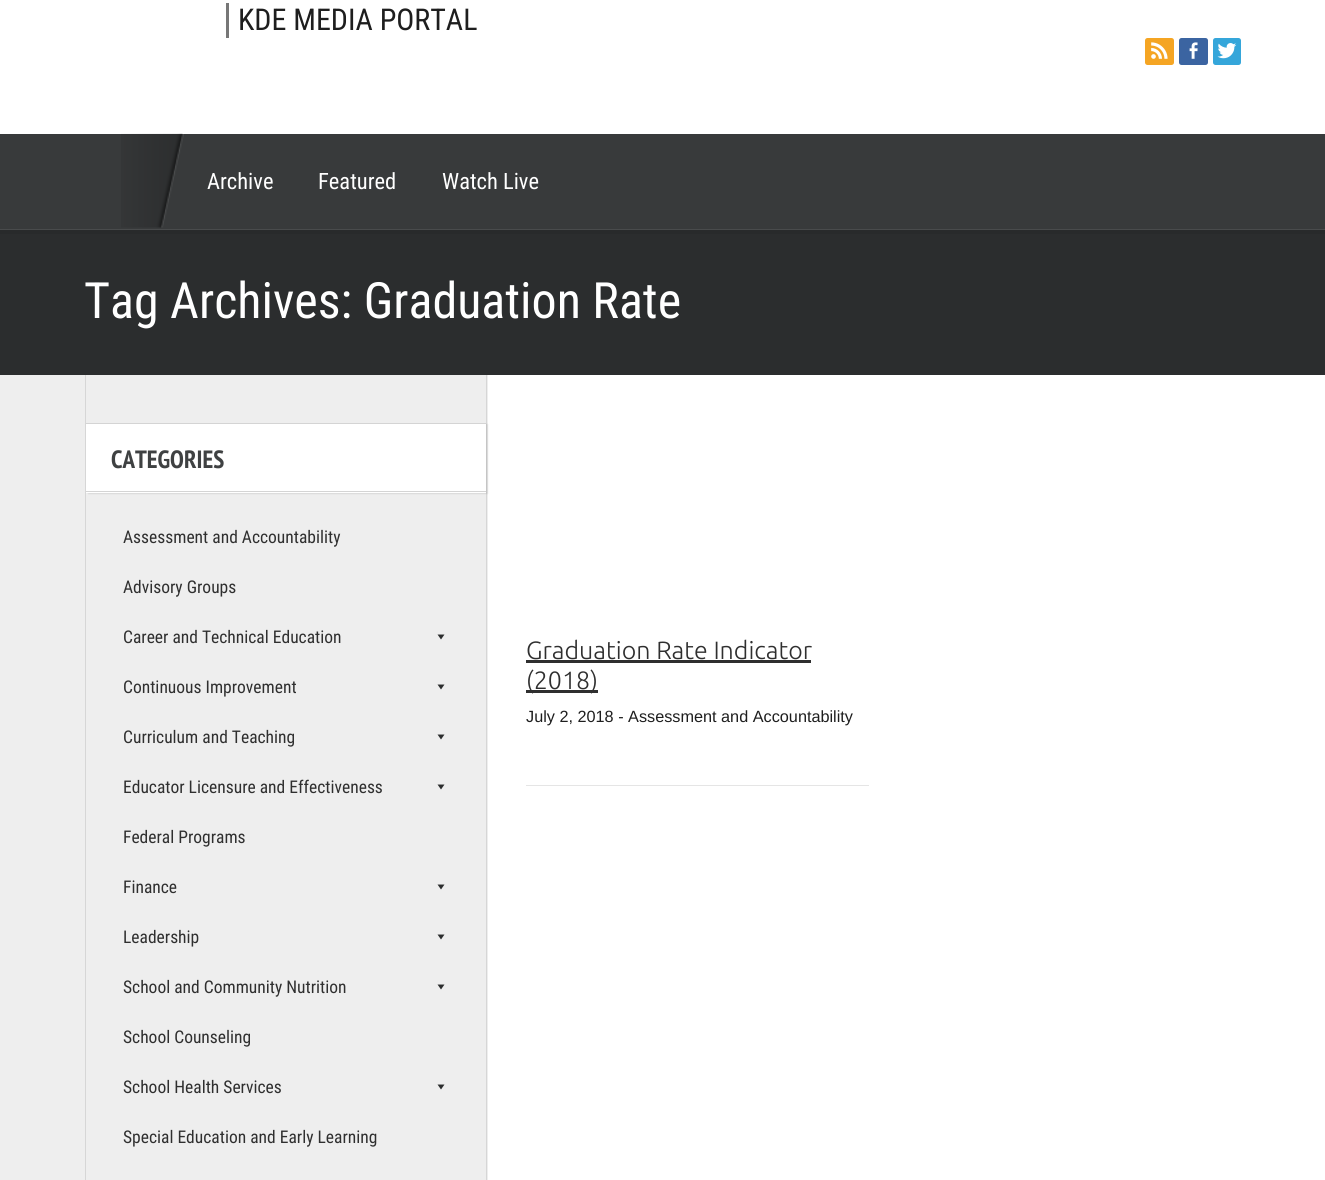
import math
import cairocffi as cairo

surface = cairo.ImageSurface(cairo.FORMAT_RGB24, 1325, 1180)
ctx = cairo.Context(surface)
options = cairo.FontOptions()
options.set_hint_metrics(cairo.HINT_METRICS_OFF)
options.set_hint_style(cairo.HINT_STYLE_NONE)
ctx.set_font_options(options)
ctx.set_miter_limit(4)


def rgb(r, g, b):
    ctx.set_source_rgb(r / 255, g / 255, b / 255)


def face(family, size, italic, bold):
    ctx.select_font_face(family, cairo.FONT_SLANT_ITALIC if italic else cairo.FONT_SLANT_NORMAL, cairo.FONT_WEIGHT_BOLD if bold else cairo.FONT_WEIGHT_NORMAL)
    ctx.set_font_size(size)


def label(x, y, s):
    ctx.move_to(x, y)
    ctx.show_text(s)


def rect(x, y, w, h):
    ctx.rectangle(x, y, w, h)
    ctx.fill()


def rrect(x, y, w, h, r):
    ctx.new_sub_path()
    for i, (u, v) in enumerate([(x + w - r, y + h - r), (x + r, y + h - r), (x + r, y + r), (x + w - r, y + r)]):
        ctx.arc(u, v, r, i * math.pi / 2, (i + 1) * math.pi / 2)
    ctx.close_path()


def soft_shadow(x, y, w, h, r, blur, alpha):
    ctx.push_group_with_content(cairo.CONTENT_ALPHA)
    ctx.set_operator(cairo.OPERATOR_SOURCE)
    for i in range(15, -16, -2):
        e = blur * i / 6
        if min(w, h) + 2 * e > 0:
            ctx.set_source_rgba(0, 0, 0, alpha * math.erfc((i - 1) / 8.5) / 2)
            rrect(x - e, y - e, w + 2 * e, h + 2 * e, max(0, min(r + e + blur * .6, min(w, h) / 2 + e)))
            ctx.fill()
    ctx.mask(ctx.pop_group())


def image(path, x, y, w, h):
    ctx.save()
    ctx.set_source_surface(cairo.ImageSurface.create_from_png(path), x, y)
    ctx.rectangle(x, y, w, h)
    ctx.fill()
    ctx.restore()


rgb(255, 255, 255)
ctx.paint()
face('Roboto Condensed', 30, 0, 0)
rgb(30, 30, 30)
label(238, 30, 'KDE MEDIA PORTAL')
rgb(119, 119, 119)
rect(226, 3, 3, 35)
rgb(245, 165, 35)
rrect(1145, 38, 29, 27, 2.5)
ctx.fill()
image('image0.png', 1151, 42, 17, 17)
rgb(59, 100, 161)
rrect(1179, 38, 29, 27, 2.5)
ctx.fill()
image('image1.png', 1189, 42, 9, 17)
rgb(53, 166, 218)
rrect(1213, 38, 28, 27, 2.5)
ctx.fill()
image('image2.png', 1217, 43, 20, 16)
rgb(56, 58, 59)
rect(0, 134, 1325, 95)
rgb(73, 75, 76)
rect(0, 229, 1325, 1)
image('image3.png', 121, 133, 63, 95)
face('Roboto Condensed', 22.5, 0, 0)
rgb(255, 255, 255)
label(207, 189, 'Archive')
label(318, 189, 'Featured')
label(442, 189, 'Watch Live')
rgb(43, 45, 46)
rect(0, 234, 1325, 141)
rgb(40, 42, 43)
rect(0, 230, 1325, 4)
face('Roboto Condensed', 50, 0, 0)
rgb(255, 255, 255)
label(84, 318, 'Tag Archives: Graduation Rate')
image('image4.png', 0, 375, 85, 805)
rgb(238, 238, 238)
rect(86, 375, 402, 805)
rgb(214, 214, 214)
rect(486, 375, 1, 805)
rect(85, 375, 1, 805)
rgb(0, 0, 0)
soft_shadow(88, 424, 400, 70, 0, 0.5, 0.08)
rgb(255, 255, 255)
rect(86, 424, 400, 69)
rgb(212, 212, 212)
rect(86, 423, 400, 1)
rect(86, 491, 400, 1)
face('PT Sans Narrow', 25, 0, 1)
rgb(63, 65, 66)
label(111, 468, 'CATEGORIES')
face('Roboto Condensed', 17.5, 0, 0)
rgb(47, 47, 47)
label(123, 543, 'Assessment and Accountability')
label(123, 593, 'Advisory Groups')
label(123, 643, 'Career and Technical Education')
rgb(43, 45, 46)
ctx.new_path()
ctx.move_to(444.5, 634.5)
ctx.line_to(441, 639.5)
ctx.line_to(437.5, 634.5)
ctx.close_path()
ctx.fill()
rgb(47, 47, 47)
label(123, 693, 'Continuous Improvement')
rgb(43, 45, 46)
ctx.new_path()
ctx.move_to(444.5, 684.5)
ctx.line_to(441, 689.5)
ctx.line_to(437.5, 684.5)
ctx.close_path()
ctx.fill()
rgb(47, 47, 47)
label(123, 743, 'Curriculum and Teaching')
rgb(43, 45, 46)
ctx.new_path()
ctx.move_to(444.5, 734.5)
ctx.line_to(441, 739.5)
ctx.line_to(437.5, 734.5)
ctx.close_path()
ctx.fill()
rgb(47, 47, 47)
label(123, 793, 'Educator Licensure and Effectiveness')
rgb(43, 45, 46)
ctx.new_path()
ctx.move_to(444.5, 784.5)
ctx.line_to(441, 789.5)
ctx.line_to(437.5, 784.5)
ctx.close_path()
ctx.fill()
rgb(47, 47, 47)
label(123, 843, 'Federal Programs')
label(123, 893, 'Finance')
rgb(43, 45, 46)
ctx.new_path()
ctx.move_to(444.5, 884.5)
ctx.line_to(441, 889.5)
ctx.line_to(437.5, 884.5)
ctx.close_path()
ctx.fill()
rgb(47, 47, 47)
label(123, 943, 'Leadership')
rgb(43, 45, 46)
ctx.new_path()
ctx.move_to(444.5, 934.5)
ctx.line_to(441, 939.5)
ctx.line_to(437.5, 934.5)
ctx.close_path()
ctx.fill()
rgb(47, 47, 47)
label(123, 993, 'School and Community Nutrition')
rgb(43, 45, 46)
ctx.new_path()
ctx.move_to(444.5, 984.5)
ctx.line_to(441, 989.5)
ctx.line_to(437.5, 984.5)
ctx.close_path()
ctx.fill()
rgb(47, 47, 47)
label(123, 1043, 'School Counseling')
label(123, 1093, 'School Health Services')
rgb(43, 45, 46)
ctx.new_path()
ctx.move_to(444.5, 1084.5)
ctx.line_to(441, 1089.5)
ctx.line_to(437.5, 1084.5)
ctx.close_path()
ctx.fill()
rgb(47, 47, 47)
label(123, 1143, 'Special Education and Early Learning')
rgb(229, 229, 229)
rect(526, 785, 343, 1)
face('Ubuntu Light', 25, 0, 0)
rgb(47, 47, 47)
label(526, 659, 'Graduation Rate Indicator')
rect(526, 660, 285, 3)
rect(526, 690, 72, 3)
label(526, 689, '(2018)')
face('Liberation Sans', 16.25, 0, 0)
rgb(30, 30, 30)
label(526, 722, 'July 2, 2018 - Assessment and Accountability')
surface.write_to_png('render.png')
